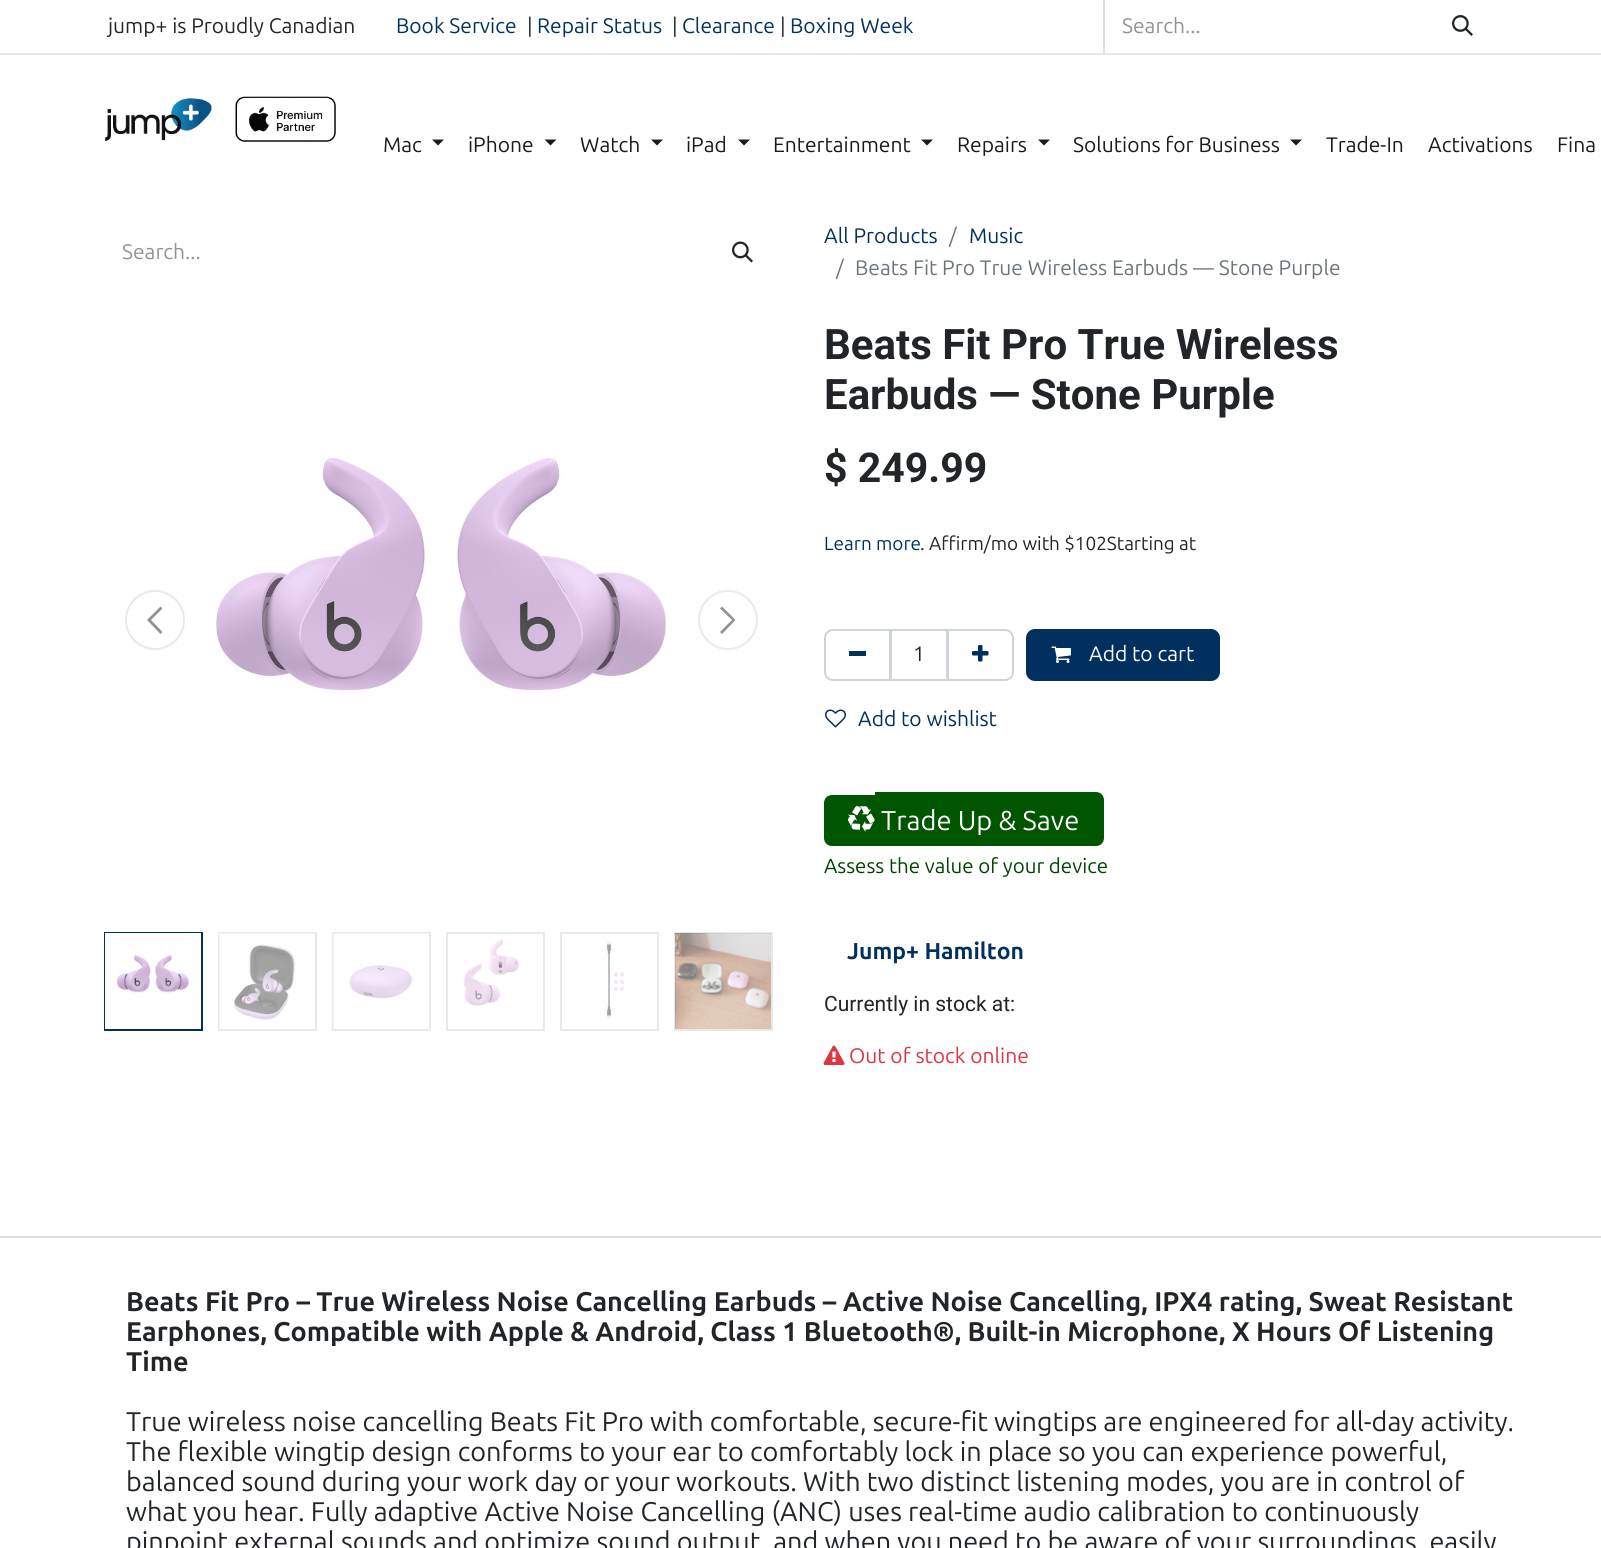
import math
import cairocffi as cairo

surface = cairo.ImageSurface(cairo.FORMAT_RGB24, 1601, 1548)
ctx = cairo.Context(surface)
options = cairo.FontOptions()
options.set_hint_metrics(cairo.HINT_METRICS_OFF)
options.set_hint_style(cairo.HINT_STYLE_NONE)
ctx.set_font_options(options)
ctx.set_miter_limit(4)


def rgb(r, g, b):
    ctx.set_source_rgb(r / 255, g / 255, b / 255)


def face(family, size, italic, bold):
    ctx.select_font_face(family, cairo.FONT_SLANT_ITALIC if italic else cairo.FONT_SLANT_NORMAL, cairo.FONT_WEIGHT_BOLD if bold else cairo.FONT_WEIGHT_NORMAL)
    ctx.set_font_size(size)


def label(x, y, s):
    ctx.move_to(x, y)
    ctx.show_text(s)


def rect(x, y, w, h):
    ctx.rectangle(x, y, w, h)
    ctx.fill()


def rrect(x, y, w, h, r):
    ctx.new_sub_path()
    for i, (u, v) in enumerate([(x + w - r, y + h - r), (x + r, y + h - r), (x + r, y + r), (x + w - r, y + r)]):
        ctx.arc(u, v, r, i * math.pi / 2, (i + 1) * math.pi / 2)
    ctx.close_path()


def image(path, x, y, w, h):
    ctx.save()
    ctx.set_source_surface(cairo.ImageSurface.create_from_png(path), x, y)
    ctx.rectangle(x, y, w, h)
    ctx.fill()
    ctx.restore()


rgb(255, 255, 255)
ctx.paint()
rgb(230, 230, 230)
rect(0, 53, 1601, 2)
face('Ubuntu', 21, 0, 0)
rgb(33, 37, 41)
label(108, 33, 'jump+ is Proudly Canadian')
rgb(1, 48, 94)
label(396, 33, 'Book Service')
rgb(33, 37, 41)
label(527, 33, '|')
rgb(1, 48, 94)
label(537, 33, 'Repair Status')
rgb(33, 37, 41)
label(672, 33, '|')
rgb(1, 48, 94)
label(682, 33, 'Clearance')
rgb(33, 37, 41)
label(780, 33, '|')
rgb(1, 48, 94)
label(790, 33, 'Boxing Week')
rgb(222, 222, 223)
rect(1103, 0, 2, 53)
rgb(144, 146, 148)
label(1122, 33, 'Search...')
image('image0.png', 1452, 15, 21, 21)
image('image1.png', 104, 96, 232, 46)
rgb(26, 26, 26)
label(383, 152, 'Mac')
ctx.new_path()
ctx.move_to(432, 139.5)
ctx.line_to(444, 139.5)
ctx.line_to(438, 145.5)
ctx.close_path()
ctx.fill()
label(468, 152, 'iPhone')
ctx.new_path()
ctx.move_to(544.5, 139.5)
ctx.line_to(556.5, 139.5)
ctx.line_to(550.5, 145.5)
ctx.close_path()
ctx.fill()
label(580, 152, 'Watch')
ctx.new_path()
ctx.move_to(651, 139.5)
ctx.line_to(663, 139.5)
ctx.line_to(657, 145.5)
ctx.close_path()
ctx.fill()
label(686, 152, 'iPad')
ctx.new_path()
ctx.move_to(738, 139.5)
ctx.line_to(750, 139.5)
ctx.line_to(744, 145.5)
ctx.close_path()
ctx.fill()
label(773, 152, 'Entertainment')
ctx.new_path()
ctx.move_to(921, 139.5)
ctx.line_to(933, 139.5)
ctx.line_to(927, 145.5)
ctx.close_path()
ctx.fill()
label(957, 152, 'Repairs')
ctx.new_path()
ctx.move_to(1038, 139.5)
ctx.line_to(1050, 139.5)
ctx.line_to(1044, 145.5)
ctx.close_path()
ctx.fill()
label(1073, 152, 'Solutions for Business')
ctx.new_path()
ctx.move_to(1290, 139.5)
ctx.line_to(1302, 139.5)
ctx.line_to(1296, 145.5)
ctx.close_path()
ctx.fill()
label(1326, 152, 'Trade-In')
label(1428, 152, 'Activations')
label(1557, 152, 'Fina')
rgb(144, 146, 148)
label(122, 259, 'Search...')
image('image2.png', 732, 241, 21, 22)
rgb(1, 48, 94)
label(824, 243, 'All Products')
rgb(108, 117, 125)
label(949, 243, '/')
rgb(1, 48, 94)
label(969, 243, 'Music')
rgb(108, 117, 125)
label(836, 275, '/')
label(855, 275, 'Beats Fit Pro True Wireless Earbuds — Stone Purple')
ctx.new_path()
ctx.arc(155, 620, 29, 0, 2 * math.pi)
rgb(231, 234, 237)
ctx.stroke()
rgb(144, 146, 148)
ctx.new_path()
ctx.move_to(147, 620)
ctx.line_to(160.5, 606.5)
ctx.line_to(162.5, 608.5)
ctx.line_to(151, 620)
ctx.line_to(162.5, 632)
ctx.line_to(160.5, 634)
ctx.close_path()
ctx.fill()
image('image3.png', 216, 455, 450, 236)
ctx.arc(728, 620, 29, 0, 2 * math.pi)
rgb(231, 234, 237)
ctx.stroke()
rgb(144, 146, 148)
ctx.new_path()
ctx.move_to(735.5, 620)
ctx.line_to(722, 634)
ctx.line_to(720, 632)
ctx.line_to(732, 620)
ctx.line_to(720, 608.5)
ctx.line_to(722, 606.5)
ctx.close_path()
ctx.fill()
ctx.rectangle(105, 933, 97, 97)
rgb(1, 48, 94)
ctx.stroke()
image('image4.png', 105, 933, 96, 96)
ctx.rectangle(219, 933, 97, 97)
rgb(231, 234, 237)
ctx.stroke()
image('image5.png', 219, 933, 96, 96)
ctx.rectangle(333, 933, 97, 97)
ctx.stroke()
image('image6.png', 333, 933, 96, 96)
ctx.rectangle(447, 933, 97, 97)
ctx.stroke()
image('image7.png', 463, 939, 56, 67)
ctx.rectangle(561, 933, 97, 97)
ctx.stroke()
image('image8.png', 606, 942, 18, 76)
ctx.rectangle(675, 933, 97, 97)
ctx.stroke()
image('image9.png', 675, 933, 96, 96)
face('Roboto', 42, 0, 1)
rgb(33, 37, 41)
label(824, 359, 'Beats Fit Pro True Wireless')
label(824, 409, 'Earbuds — Stone Purple')
face('Roboto', 41, 0, 1)
label(824, 482, '$ 249.99')
face('Ubuntu', 18.9, 0, 0)
rgb(1, 48, 94)
label(824, 550, 'Learn more')
rgb(33, 37, 41)
label(920, 550, '. Affirm/mo with $102Starting at')
ctx.rectangle(891, 630, 56, 50)
rgb(206, 212, 218)
ctx.stroke()
ctx.new_path()
ctx.move_to(833, 630)
ctx.line_to(890, 630)
ctx.line_to(890, 680)
ctx.line_to(833, 680)
ctx.curve_to(828.5, 680, 825, 676.5, 825, 672)
ctx.line_to(825, 638)
ctx.curve_to(825, 633.5, 828.5, 630, 833, 630)
ctx.close_path()
ctx.stroke()
rgb(1, 48, 94)
rect(849, 651, 17, 5)
face('Ubuntu', 21, 0, 0)
rgb(33, 37, 41)
label(913, 661, '1')
ctx.new_path()
ctx.move_to(948, 630)
ctx.line_to(1005, 630)
ctx.curve_to(1009.5, 630, 1013, 633.5, 1013, 638)
ctx.line_to(1013, 672)
ctx.curve_to(1013, 676.5, 1009.5, 680, 1005, 680)
ctx.line_to(948, 680)
ctx.close_path()
rgb(206, 212, 218)
ctx.stroke()
image('image10.png', 972, 645, 17, 17)
rgb(1, 48, 94)
rrect(1027, 630, 192, 50, 8)
ctx.fill_preserve()
ctx.stroke()
image('image11.png', 1051, 646, 20, 17)
rgb(255, 255, 255)
label(1089, 661, 'Add to cart')
image('image12.png', 825, 709, 21, 19)
rgb(1, 48, 94)
label(858, 726, 'Add to wishlist')
rgb(0, 85, 0)
ctx.new_path()
ctx.move_to(832, 795)
ctx.line_to(875, 795)
ctx.line_to(875, 846)
ctx.line_to(832, 846)
ctx.curve_to(827.5, 846, 824, 842.5, 824, 838)
ctx.line_to(824, 803)
ctx.curve_to(824, 798.5, 827.5, 795, 832, 795)
ctx.close_path()
ctx.fill()
ctx.new_path()
ctx.move_to(875, 792)
ctx.line_to(1096, 792)
ctx.curve_to(1100.5, 792, 1104, 795.5, 1104, 800)
ctx.line_to(1104, 838)
ctx.curve_to(1104, 842.5, 1100.5, 846, 1096, 846)
ctx.line_to(875, 846)
ctx.close_path()
ctx.fill()
image('image13.png', 847, 806, 28, 26)
face('Ubuntu', 27.25, 0, 0)
rgb(255, 255, 255)
label(881, 830, 'Trade Up & Save')
face('Ubuntu', 20.5, 0, 0)
rgb(0, 68, 0)
label(824, 873, 'Assess the value of your device')
face('Ubuntu', 23, 0, 1)
rgb(1, 48, 94)
label(847, 959, 'Jump+ Hamilton')
face('Roboto', 21, 0, 0)
rgb(33, 37, 41)
label(824, 1011, 'Currently in stock at:')
image('image14.png', 823, 1045, 22, 20)
face('Ubuntu', 21, 0, 0)
rgb(220, 53, 69)
label(849, 1063, 'Out of stock online')
rgb(222, 222, 223)
rect(0, 1236, 1601, 2)
face('Ubuntu', 27, 0, 1)
rgb(33, 37, 41)
label(126, 1311, 'Beats Fit Pro – True Wireless Noise Cancelling Earbuds – Active Noise Cancelling, IPX4 rating, Sweat Resistant')
label(126, 1341, 'Earphones, Compatible with Apple & Android, Class 1 Bluetooth®, Built-in Microphone, X Hours Of Listening')
label(126, 1371, 'Time')
face('Ubuntu', 27, 0, 0)
label(126, 1431, 'True wireless noise cancelling Beats Fit Pro with comfortable, secure-fit wingtips are engineered for all-day activity.')
label(126, 1461, 'The flexible wingtip design conforms to your ear to comfortably lock in place so you can experience powerful,')
label(126, 1491, 'balanced sound during your work day or your workouts. With two distinct listening modes, you are in control of')
label(126, 1521, 'what you hear. Fully adaptive Active Noise Cancelling (ANC) uses real-time audio calibration to continuously')
label(126, 1551, 'pinpoint external sounds and optimize sound output, and when you need to be aware of your surroundings, easily')
surface.write_to_png('render.png')
